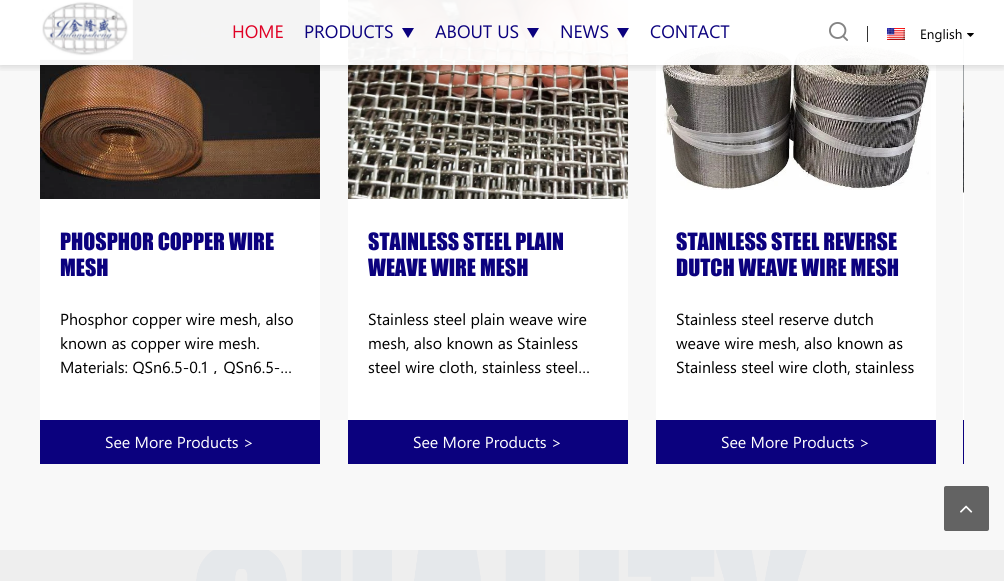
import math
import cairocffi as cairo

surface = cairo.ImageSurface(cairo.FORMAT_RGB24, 1004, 581)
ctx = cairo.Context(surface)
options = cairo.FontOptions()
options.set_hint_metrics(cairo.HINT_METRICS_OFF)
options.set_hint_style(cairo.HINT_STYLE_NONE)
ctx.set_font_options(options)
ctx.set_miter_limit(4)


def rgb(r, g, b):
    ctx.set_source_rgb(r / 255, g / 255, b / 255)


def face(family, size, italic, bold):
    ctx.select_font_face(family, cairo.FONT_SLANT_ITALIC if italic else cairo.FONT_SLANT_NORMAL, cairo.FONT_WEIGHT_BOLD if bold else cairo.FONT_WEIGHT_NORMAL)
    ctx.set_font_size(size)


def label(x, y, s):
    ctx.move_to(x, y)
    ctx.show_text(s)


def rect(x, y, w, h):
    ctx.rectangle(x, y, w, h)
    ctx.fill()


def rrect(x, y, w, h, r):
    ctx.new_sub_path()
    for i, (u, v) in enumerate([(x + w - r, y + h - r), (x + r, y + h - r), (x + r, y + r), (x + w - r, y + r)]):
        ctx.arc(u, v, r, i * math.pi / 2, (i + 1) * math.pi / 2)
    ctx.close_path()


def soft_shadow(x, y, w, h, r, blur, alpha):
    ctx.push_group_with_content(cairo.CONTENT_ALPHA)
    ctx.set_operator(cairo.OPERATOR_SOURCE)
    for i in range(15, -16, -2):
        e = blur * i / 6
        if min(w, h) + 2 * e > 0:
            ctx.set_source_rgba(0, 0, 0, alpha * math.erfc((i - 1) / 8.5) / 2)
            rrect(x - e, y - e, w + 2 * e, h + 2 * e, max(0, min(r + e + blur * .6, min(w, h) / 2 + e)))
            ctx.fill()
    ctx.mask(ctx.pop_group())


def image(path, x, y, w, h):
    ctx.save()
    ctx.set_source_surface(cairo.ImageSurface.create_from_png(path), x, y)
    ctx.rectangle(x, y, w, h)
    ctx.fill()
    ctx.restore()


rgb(248, 248, 248)
ctx.paint()
image('image4.png', 40, 0, 280, 199)
image('image5.png', 348, 0, 280, 199)
rgb(255, 255, 255)
rect(656, 0, 280, 420)
image('image6.png', 660, 43, 271, 147)
rect(963, 0, 1, 420)
image('image7.png', 963, 34, 1, 159)
ctx.save()
ctx.rectangle(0, 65, 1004, 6)
ctx.clip()
rgb(0, 0, 0)
soft_shadow(0, 0, 1004, 65, 0, 5, 0.2)
ctx.restore()
ctx.set_source_rgba(1, 1, 1, 0.95)
rect(0, 0, 1004, 65)
image('image0.png', 40, 0, 93, 60)
face('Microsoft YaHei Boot', 18, 0, 0)
rgb(224, 0, 36)
label(232, 38, 'HOME')
rgb(11, 1, 126)
label(304, 38, 'PRODUCTS')
ctx.new_path()
ctx.move_to(402, 28)
ctx.line_to(414, 28)
ctx.line_to(408, 38)
ctx.close_path()
ctx.fill()
label(435, 38, 'ABOUT US')
ctx.new_path()
ctx.move_to(527, 28)
ctx.line_to(539, 28)
ctx.line_to(533, 38)
ctx.close_path()
ctx.fill()
label(560, 38, 'NEWS')
ctx.new_path()
ctx.move_to(617, 28)
ctx.line_to(629, 28)
ctx.line_to(623, 38)
ctx.close_path()
ctx.fill()
label(650, 38, 'CONTACT')
image('image1.png', 829, 22, 19, 19)
rgb(51, 51, 51)
rect(867, 26, 1, 16)
image('image2.png', 887, 28, 18, 12)
face('Microsoft YaHei Boot', 13.5, 0, 0)
rgb(0, 0, 0)
label(920, 39, 'English')
image('image3.png', 967, 33, 7, 4)
rgb(255, 255, 255)
rect(40, 199, 280, 221)
face('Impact', 22, 0, 0)
rgb(11, 1, 126)
label(60, 250, 'PHOSPHOR COPPER WIRE')
label(60, 276, 'MESH')
face('Microsoft YaHei Boot', 16, 0, 0)
rgb(0, 0, 0)
label(60, 325, 'Phosphor copper wire mesh, also')
label(60, 349, 'known as copper wire mesh.')
ctx.save()
ctx.rectangle(60, 307, 240, 67)
ctx.clip()
label(60, 373, 'Materials: QSn6.5-0.1，QSn6.5-…')
ctx.restore()
rgb(11, 1, 126)
rect(40, 420, 280, 44)
rgb(255, 255, 255)
label(105, 448, 'See More Products >')
rect(348, 199, 280, 221)
face('Impact', 22, 0, 0)
rgb(11, 1, 126)
label(368, 250, 'STAINLESS STEEL PLAIN')
label(368, 276, 'WEAVE WIRE MESH')
face('Microsoft YaHei Boot', 16, 0, 0)
rgb(0, 0, 0)
label(368, 325, 'Stainless steel plain weave wire')
label(368, 349, 'mesh, also known as Stainless')
ctx.save()
ctx.rectangle(368, 307, 240, 67)
ctx.clip()
label(368, 373, 'steel wire cloth, stainless steel…')
ctx.restore()
rgb(11, 1, 126)
rect(348, 420, 280, 44)
rgb(255, 255, 255)
label(413, 448, 'See More Products >')
face('Impact', 22, 0, 0)
rgb(11, 1, 126)
label(676, 250, 'STAINLESS STEEL REVERSE')
label(676, 276, 'DUTCH WEAVE WIRE MESH')
face('Microsoft YaHei Boot', 16, 0, 0)
rgb(0, 0, 0)
label(676, 325, 'Stainless steel reserve dutch')
label(676, 349, 'weave wire mesh, also known as')
label(676, 373, 'Stainless steel wire cloth, stainless')
rgb(11, 1, 126)
rect(656, 420, 280, 44)
rgb(255, 255, 255)
label(721, 448, 'See More Products >')
rgb(11, 1, 126)
rect(963, 420, 1, 44)
rgb(238, 238, 238)
rect(0, 550, 1004, 31)
image('image8.png', 196, 550, 611, 31)
rgb(99, 99, 99)
rrect(944, 486, 45, 45, 2)
ctx.fill()
image('image9.png', 960, 505, 13, 8)
surface.write_to_png('render.png')
